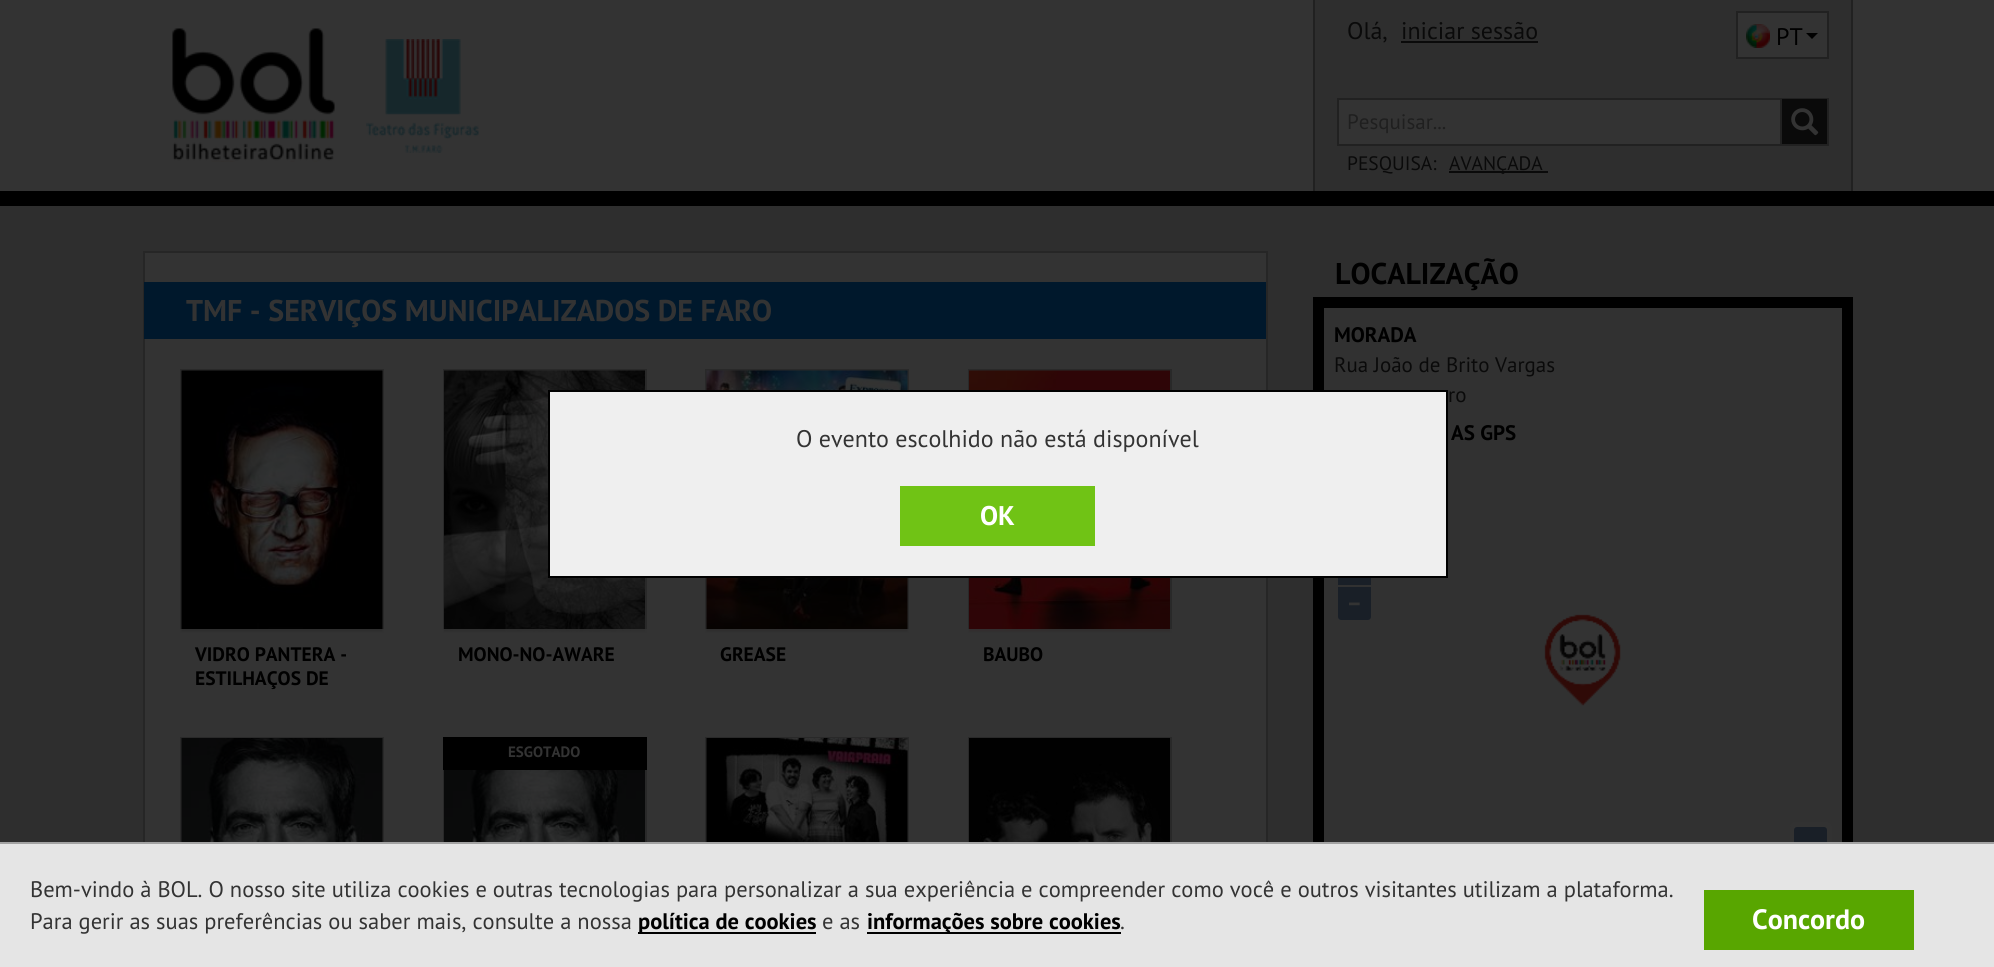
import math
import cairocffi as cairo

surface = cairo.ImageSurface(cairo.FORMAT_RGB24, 1994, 967)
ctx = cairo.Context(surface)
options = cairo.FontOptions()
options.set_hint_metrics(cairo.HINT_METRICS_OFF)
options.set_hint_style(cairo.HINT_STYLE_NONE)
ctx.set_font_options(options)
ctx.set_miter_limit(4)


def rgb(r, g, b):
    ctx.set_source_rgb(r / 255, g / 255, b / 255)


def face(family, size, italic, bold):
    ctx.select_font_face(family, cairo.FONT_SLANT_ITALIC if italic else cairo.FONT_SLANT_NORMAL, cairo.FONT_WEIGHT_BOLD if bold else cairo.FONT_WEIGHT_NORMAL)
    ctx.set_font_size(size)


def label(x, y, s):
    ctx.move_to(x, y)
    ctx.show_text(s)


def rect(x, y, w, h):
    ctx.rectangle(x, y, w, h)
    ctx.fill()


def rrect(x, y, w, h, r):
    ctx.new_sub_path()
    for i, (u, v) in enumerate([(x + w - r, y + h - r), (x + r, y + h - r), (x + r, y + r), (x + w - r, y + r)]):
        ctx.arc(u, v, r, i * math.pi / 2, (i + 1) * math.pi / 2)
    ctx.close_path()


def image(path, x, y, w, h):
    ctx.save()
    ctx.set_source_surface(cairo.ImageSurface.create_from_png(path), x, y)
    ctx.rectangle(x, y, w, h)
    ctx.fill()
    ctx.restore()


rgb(46, 46, 46)
ctx.paint()
rgb(51, 51, 51)
rect(0, 0, 1994, 191)
rgb(0, 0, 0)
rect(0, 191, 1994, 15)
image('image0.png', 172, 28, 163, 134)
image('image1.png', 366, 39, 113, 114)
rgb(46, 46, 46)
rect(1315, 0, 536, 191)
rgb(33, 33, 33)
rect(1851, 0, 2, 191)
rect(1313, 0, 2, 191)
face('PT Sans', 24, 0, 0)
rgb(10, 10, 10)
label(1347, 39, 'Olá,')
label(1401, 39, 'iniciar sessão')
rect(1401, 41, 137, 2)
rgb(51, 51, 51)
ctx.rectangle(1737, 12, 91, 46)
ctx.fill_preserve()
rgb(33, 33, 33)
ctx.stroke()
image('image2.png', 1746, 24, 24, 24)
rgb(0, 0, 0)
label(1776, 45, 'PT')
ctx.new_path()
ctx.move_to(1806, 33)
ctx.line_to(1818, 33)
ctx.line_to(1812, 39)
ctx.close_path()
ctx.fill()
rgb(51, 51, 51)
ctx.rectangle(1338, 99, 443, 46)
ctx.fill_preserve()
rgb(33, 33, 33)
ctx.stroke()
face('PT Sans', 21, 0, 0)
rgb(31, 31, 31)
label(1347, 129, 'Pesquisar...')
rgb(33, 33, 33)
rect(1782, 98, 47, 1)
rect(1827, 98, 2, 48)
rect(1782, 144, 47, 2)
rgb(10, 10, 10)
rect(1782, 99, 45, 45)
image('image3.png', 1791, 108, 28, 28)
face('PT Sans', 19.5, 0, 0)
label(1347, 170, 'PESQUISA:')
rect(1449, 171, 99, 2)
label(1449, 170, 'AVANÇADA')
rgb(51, 51, 51)
rect(145, 253, 1121, 589)
ctx.rectangle(144, 252, 1123, 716)
rgb(38, 38, 38)
ctx.stroke()
rgb(0, 24, 44)
rect(144, 282, 1122, 57)
face('PT Sans', 30, 0, 1)
rgb(51, 51, 51)
label(186, 321, 'TMF - SERVIÇOS MUNICIPALIZADOS DE FARO')
ctx.rectangle(181, 370, 202, 262)
rgb(41, 41, 41)
ctx.stroke()
image('image4.png', 181, 370, 202, 262)
ctx.set_source_rgba(0.2, 0.2, 0.2, 0.9)
rect(180, 629, 204, 4)
face('PT Sans', 19.5, 0, 1)
rgb(0, 0, 0)
label(195, 661, 'VIDRO PANTERA -')
label(195, 685, 'ESTILHAÇOS DE')
ctx.rectangle(444, 370, 202, 262)
rgb(41, 41, 41)
ctx.stroke()
image('image5.png', 444, 370, 201, 262)
ctx.set_source_rgba(0.2, 0.2, 0.2, 0.9)
rect(443, 629, 204, 4)
rgb(0, 0, 0)
label(458, 661, 'MONO-NO-AWARE')
ctx.rectangle(706, 370, 202, 262)
rgb(41, 41, 41)
ctx.stroke()
image('image6.png', 706, 370, 202, 262)
ctx.set_source_rgba(0.2, 0.2, 0.2, 0.9)
rect(705, 629, 204, 4)
rgb(0, 0, 0)
label(720, 661, 'GREASE')
ctx.rectangle(969, 370, 202, 262)
rgb(41, 41, 41)
ctx.stroke()
image('image7.png', 969, 370, 201, 262)
ctx.set_source_rgba(0.2, 0.2, 0.2, 0.9)
rect(968, 629, 204, 4)
rgb(0, 0, 0)
label(983, 661, 'BAUBO')
ctx.rectangle(181, 738, 202, 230)
rgb(41, 41, 41)
ctx.stroke()
image('image8.png', 181, 738, 202, 104)
ctx.rectangle(444, 738, 202, 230)
ctx.stroke()
image('image9.png', 444, 770, 201, 72)
rgb(0, 0, 0)
rect(443, 737, 204, 33)
face('PT Sans', 15, 0, 1)
rgb(51, 51, 51)
label(508, 757, 'ESGOTADO')
ctx.rectangle(706, 738, 202, 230)
rgb(41, 41, 41)
ctx.stroke()
image('image10.png', 706, 738, 202, 104)
ctx.rectangle(969, 738, 202, 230)
ctx.stroke()
image('image11.png', 969, 738, 201, 104)
face('PT Sans', 30, 0, 1)
rgb(0, 0, 0)
label(1335, 284, 'LOCALIZAÇÃO')
rgb(49, 49, 49)
rect(1324, 308, 518, 534)
ctx.rectangle(1318.5, 302.5, 529, 577)
rgb(0, 0, 0)
ctx.set_line_width(11)
ctx.stroke()
face('PT Sans', 21, 0, 1)
label(1334, 342, 'MORADA')
face('PT Sans', 21, 0, 0)
rgb(10, 10, 10)
label(1334, 372, 'Rua João de Brito Vargas')
label(1448, 402, 'ro')
face('PT Sans', 21, 0, 1)
rgb(0, 0, 0)
label(1451, 440, 'AS GPS')
rgb(25, 31, 39)
rect(1338, 578, 33, 7)
ctx.new_path()
ctx.move_to(1338, 587)
ctx.line_to(1371, 587)
ctx.line_to(1371, 617)
ctx.curve_to(1371, 618.5, 1369.5, 620, 1368, 620)
ctx.line_to(1341, 620)
ctx.curve_to(1339.5, 620, 1338, 618.5, 1338, 617)
ctx.close_path()
ctx.fill()
face('PT Sans', 24, 0, 1)
rgb(51, 51, 51)
label(1348, 612, '−')
rgb(50, 50, 50)
rrect(1790, 822, 42, 42, 6)
ctx.fill()
rgb(25, 31, 39)
rrect(1794, 827, 33, 33, 3)
ctx.fill()
image('image12.png', 1544, 614, 77, 92)
rgb(239, 239, 239)
ctx.rectangle(549, 391, 898, 186)
ctx.fill_preserve()
rgb(0, 0, 0)
ctx.set_line_width(2)
ctx.stroke()
face('PT Sans', 24, 0, 0)
rgb(51, 51, 51)
label(796, 447, 'O evento escolhido não está disponível')
rgb(112, 195, 21)
rect(900, 486, 195, 60)
face('PT Sans', 27, 0, 1)
rgb(255, 255, 255)
label(980, 525, 'OK')
rgb(229, 229, 229)
rect(0, 844, 1994, 123)
rgb(163, 163, 163)
rect(0, 842, 1994, 2)
face('PT Sans', 22.5, 0, 0)
rgb(51, 51, 51)
label(30, 897, 'Bem-vindo à BOL. O nosso site utiliza cookies e outras tecnologias para personalizar a sua experiência e compreender como você e outros visitantes utilizam a plataforma.')
label(30, 929, 'Para gerir as suas preferências ou saber mais, consulte a nossa')
rgb(0, 0, 0)
rect(638, 932, 178, 2)
face('PT Sans', 22.5, 0, 1)
label(638, 929, 'política de cookies')
face('PT Sans', 22.5, 0, 0)
rgb(51, 51, 51)
label(822, 929, 'e as')
rgb(0, 0, 0)
rect(867, 932, 254, 2)
face('PT Sans', 22.5, 0, 1)
label(867, 929, 'informações sobre cookies')
face('PT Sans', 22.5, 0, 0)
rgb(51, 51, 51)
label(1120, 929, '.')
rgb(88, 166, 0)
rect(1704, 890, 210, 60)
face('PT Sans', 28, 0, 1)
rgb(255, 255, 255)
label(1752, 929, 'Concordo')
surface.write_to_png('render.png')
